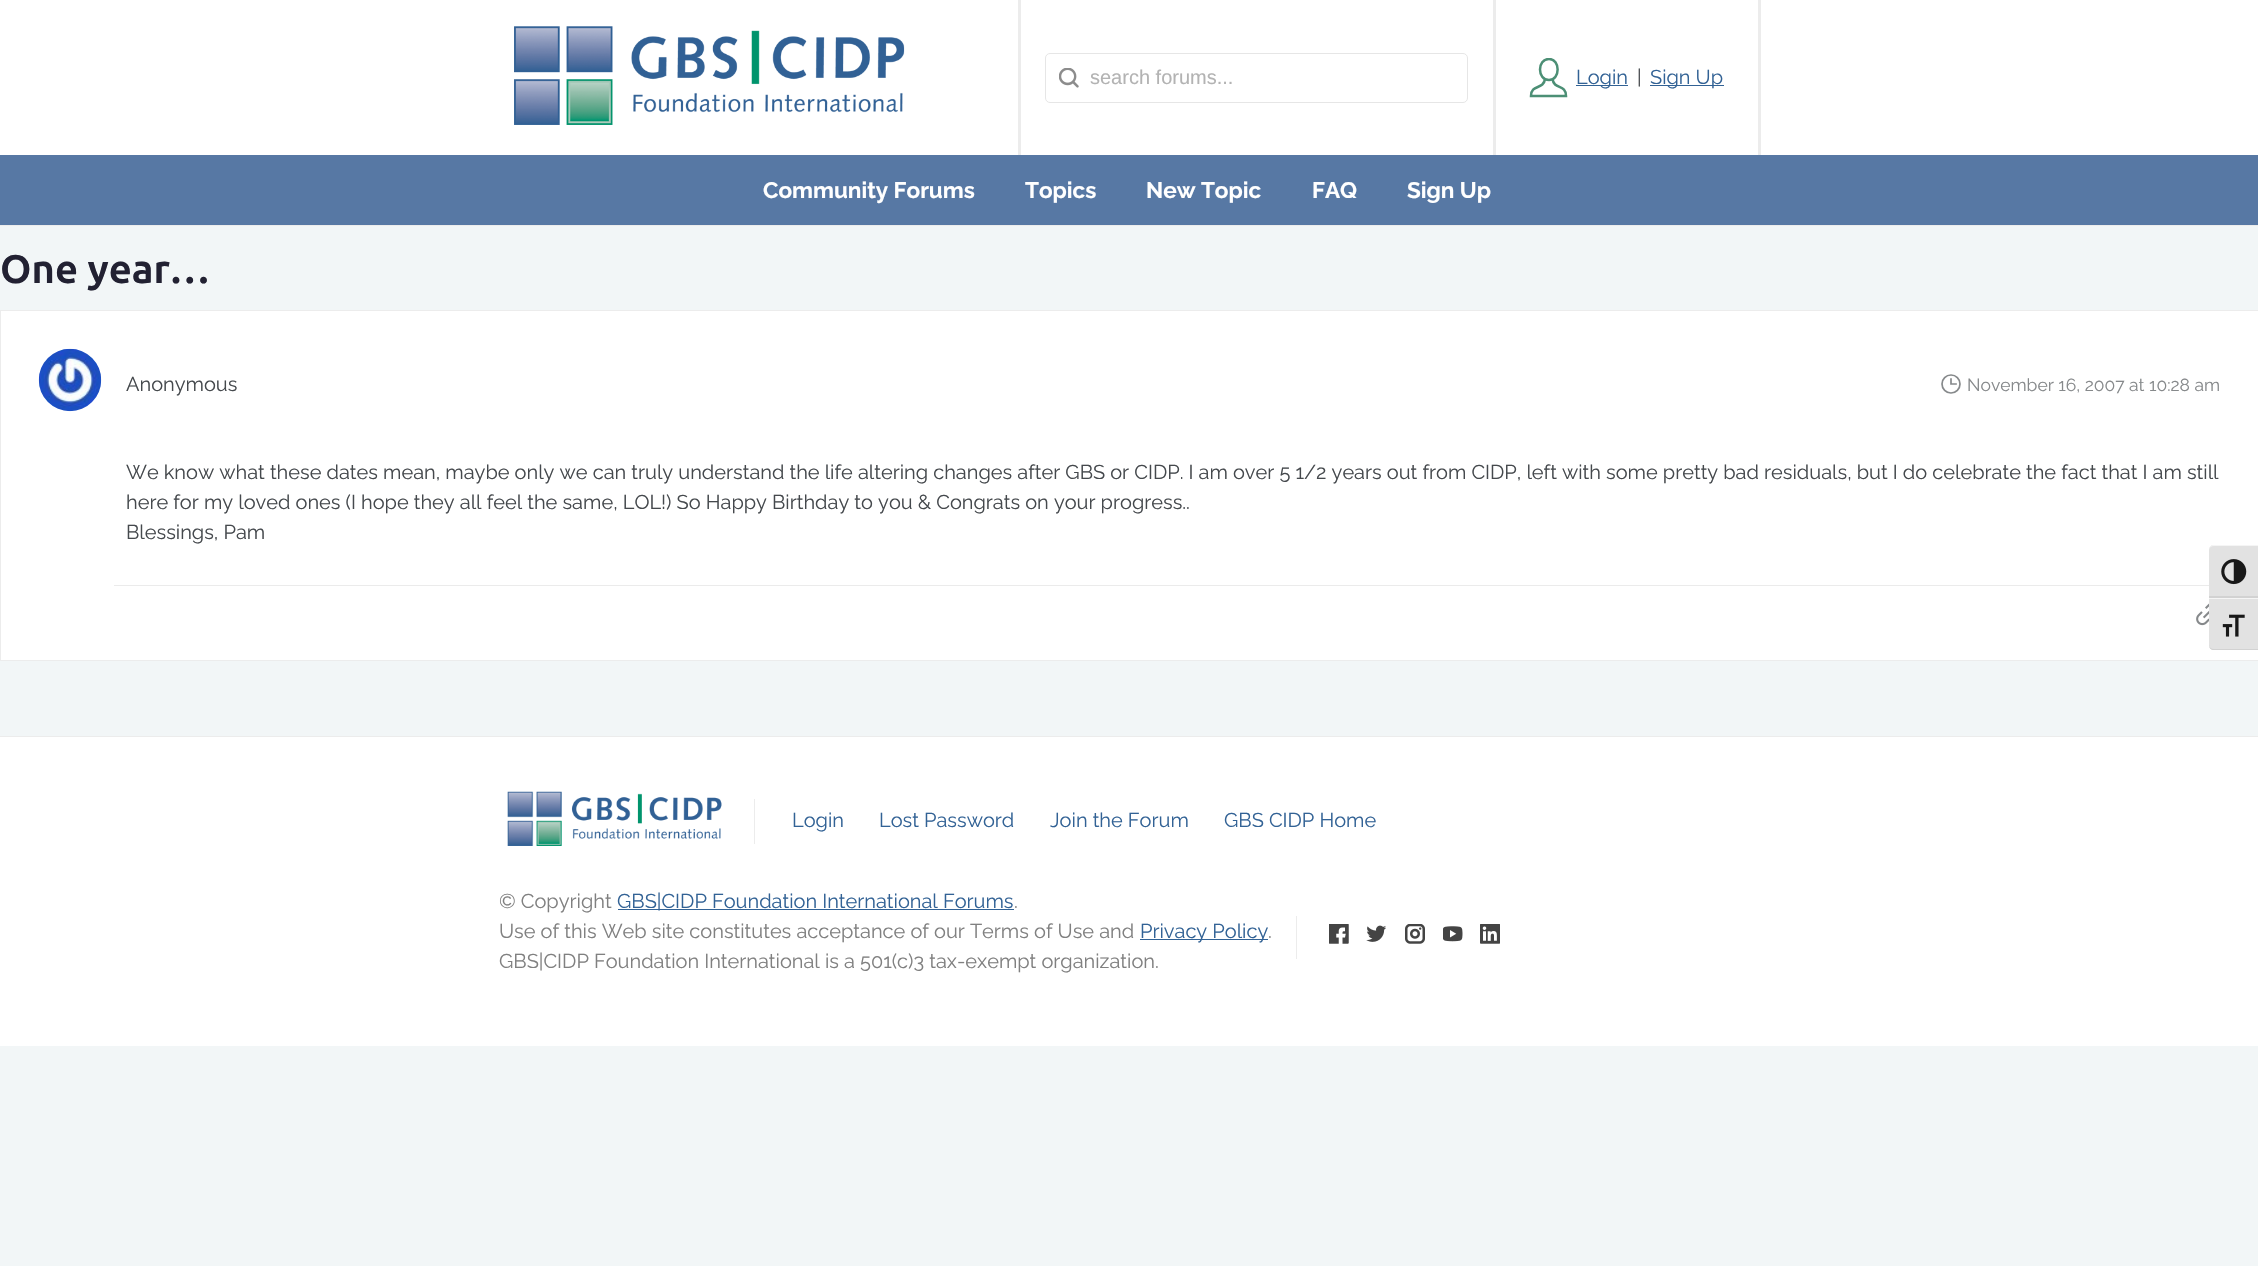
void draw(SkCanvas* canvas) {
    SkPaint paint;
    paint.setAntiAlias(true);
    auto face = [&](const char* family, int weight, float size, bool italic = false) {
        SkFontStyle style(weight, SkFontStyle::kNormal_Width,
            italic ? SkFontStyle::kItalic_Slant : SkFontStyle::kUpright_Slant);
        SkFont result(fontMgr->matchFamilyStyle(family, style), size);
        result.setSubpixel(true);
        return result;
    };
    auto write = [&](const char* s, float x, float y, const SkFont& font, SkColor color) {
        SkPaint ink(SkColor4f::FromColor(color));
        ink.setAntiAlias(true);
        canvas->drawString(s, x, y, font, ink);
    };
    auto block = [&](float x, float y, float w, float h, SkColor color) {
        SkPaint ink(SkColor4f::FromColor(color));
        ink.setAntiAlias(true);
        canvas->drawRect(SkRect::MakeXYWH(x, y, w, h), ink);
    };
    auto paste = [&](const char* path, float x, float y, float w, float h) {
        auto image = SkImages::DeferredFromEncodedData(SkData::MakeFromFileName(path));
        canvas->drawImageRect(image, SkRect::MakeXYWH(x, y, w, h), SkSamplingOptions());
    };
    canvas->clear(SkColorSetRGB(242, 246, 247));
    block(0, 0, 2258, 155, SK_ColorWHITE);
    block(0, 225, 2258, 1, SkColorSetRGB(236, 236, 236));
    block(1018, 0, 3, 155, SkColorSetRGB(236, 236, 236));
    paste("pic1.png", 514, 26, 391, 99);
    block(1493, 0, 3, 155, SkColorSetRGB(236, 236, 236));
    paste("pic2.png", 1059, 68, 20, 20);
    paint.setStyle(SkPaint::kStroke_Style);
    paint.setStrokeWidth(1);
    paint.setColor(SkColorSetRGB(230, 230, 230));
    canvas->drawRoundRect(SkRect::MakeXYWH(1045.5f, 53.5f, 422, 49), 4.5f, 4.5f, paint);
    auto kFont1 = face("Liberation Sans", 400, 20);
    write("search forums...", 1090, 84, kFont1, SkColorSetRGB(179, 179, 179));
    block(1758, 0, 3, 155, SkColorSetRGB(236, 236, 236));
    paint.setStrokeWidth(2.5f);
    paint.setColor(SkColorSetRGB(76, 143, 117));
    canvas->drawPath(SkPathBuilder().moveTo(1545, 79).cubicTo(1543.5f, 90, 1531, 84, 1531, 96).lineTo(1566, 96).cubicTo(1566, 84, 1554, 90, 1552.5f, 79).detach(), paint);
    canvas->save();
    canvas->clipRect(SkRect::MakeXYWH(1529, 58, 40, 40));
    paint.setStrokeCap(SkPaint::kSquare_Cap);
    canvas->drawPath(SkPathBuilder().moveTo(1549, 80).cubicTo(1537, 80, 1537, 59, 1549, 59).cubicTo(1560.5f, 59, 1560.5f, 80, 1549, 80).close().detach(), paint);
    canvas->restore();
    block(1576, 85, 52, 1, SkColorSetRGB(50, 98, 149));
    auto kFont2 = face("Raleway", 400, 20);
    write("Login", 1576, 84, kFont2, SkColorSetRGB(50, 98, 149));
    write("|", 1637, 84, kFont2, SkColorSetRGB(69, 73, 77));
    block(1650, 85, 74, 1, SkColorSetRGB(50, 98, 149));
    write("Sign Up", 1650, 84, kFont2, SkColorSetRGB(50, 98, 149));
    block(0, 155, 2258, 70, SkColorSetRGB(87, 120, 164));
    auto kFont3 = face("Raleway", 700, 22.5f);
    write("Community Forums", 763, 198, kFont3, SK_ColorWHITE);
    write("Topics", 1025, 198, kFont3, SK_ColorWHITE);
    write("New Topic", 1146, 198, kFont3, SK_ColorWHITE);
    write("FAQ", 1312, 198, kFont3, SK_ColorWHITE);
    write("Sign Up", 1407, 198, kFont3, SK_ColorWHITE);
    auto kFont4 = face("Ubuntu", 700, 40);
    write("One year…", 0, 283, kFont4, SkColorSetRGB(34, 33, 50));
    paint.setStyle(SkPaint::kFill_Style);
    paint.setColor(SK_ColorWHITE);
    canvas->drawRect(SkRect::MakeXYWH(0.5f, 310.5f, 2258, 350), paint);
    paint.setStyle(SkPaint::kStroke_Style);
    paint.setStrokeWidth(1);
    paint.setStrokeCap(SkPaint::kButt_Cap);
    paint.setColor(SkColorSetRGB(236, 236, 236));
    canvas->drawRect(SkRect::MakeXYWH(0.5f, 310.5f, 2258, 350), paint);
    paste("pic3.png", 38, 348, 64, 64);
    write("Anonymous", 126, 391, kFont2, SkColorSetRGB(69, 73, 77));
    paint.setStrokeWidth(1.7f);
    paint.setColor(SkColorSetRGB(134, 137, 139));
    canvas->drawCircle(1951, 384, 9, paint);
    paint.setStrokeCap(SkPaint::kSquare_Cap);
    canvas->drawPath(SkPathBuilder().moveTo(1951, 379).lineTo(1951, 384).lineTo(1956, 384).detach(), paint);
    auto kFont5 = face("Raleway", 400, 17.5f);
    write("November 16, 2007 at 10:28 am", 1967, 391, kFont5, SkColorSetRGB(134, 137, 139));
    write("We know what these dates mean, maybe only we can truly understand the life altering changes after GBS or CIDP. I am over 5 1/2 years out from CIDP, left with some pretty bad residuals, but I do celebrate the fact that I am still", 126, 479, kFont2, SkColorSetRGB(69, 73, 77));
    write("here for my loved ones (I hope they all feel the same, LOL!) So Happy Birthday to you & Congrats on your progress..", 126, 509, kFont2, SkColorSetRGB(69, 73, 77));
    write("Blessings, Pam", 126, 539, kFont2, SkColorSetRGB(69, 73, 77));
    block(114, 585, 2095, 1, SkColorSetRGB(235, 235, 235));
    paste("pic4.png", 2196, 603, 13, 23);
    block(0, 737, 2258, 309, SK_ColorWHITE);
    block(0, 736, 2258, 1, SkColorSetRGB(236, 236, 236));
    paste("pic5.png", 507, 791, 215, 55);
    block(754, 799, 1, 45, SkColorSetRGB(236, 236, 236));
    write("Login", 792, 827, kFont2, SkColorSetRGB(50, 98, 149));
    write("Lost Password", 879, 827, kFont2, SkColorSetRGB(50, 98, 149));
    write("Join the Forum", 1050, 827, kFont2, SkColorSetRGB(50, 98, 149));
    write("GBS CIDP Home", 1224, 827, kFont2, SkColorSetRGB(50, 98, 149));
    write("© Copyright", 499, 908, kFont2, SkColorSetRGB(128, 128, 128));
    block(618, 909, 396, 1, SkColorSetRGB(50, 98, 149));
    write("GBS|CIDP Foundation International Forums", 617, 908, kFont2, SkColorSetRGB(50, 98, 149));
    write(".", 1014, 908, kFont2, SkColorSetRGB(128, 128, 128));
    write("Use of this Web site constitutes acceptance of our Terms of Use and", 499, 938, kFont2, SkColorSetRGB(128, 128, 128));
    block(1140, 939, 128, 1, SkColorSetRGB(50, 98, 149));
    write("Privacy Policy", 1140, 938, kFont2, SkColorSetRGB(50, 98, 149));
    write(".", 1268, 938, kFont2, SkColorSetRGB(128, 128, 128));
    write("GBS|CIDP Foundation International is a 501(c)3 tax-exempt organization.", 499, 968, kFont2, SkColorSetRGB(128, 128, 128));
    block(1296, 916, 1, 43, SkColorSetRGB(236, 236, 236));
    paste("pic6.png", 1329, 924, 20, 20);
    paste("pic7.png", 1366, 925, 20, 17);
    paste("pic8.png", 1405, 924, 20, 20);
    paste("pic9.png", 1443, 926, 20, 16);
    paste("pic10.png", 1480, 924, 20, 20);
    paint.setStyle(SkPaint::kFill_Style);
    paint.setColor(SkColorSetRGB(226, 226, 226));
    canvas->drawPath(SkPathBuilder().moveTo(2214, 545).lineTo(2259, 545).lineTo(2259, 598).lineTo(2209, 598).lineTo(2209, 550).cubicTo(2209, 547, 2211, 545, 2214, 545).close().detach(), paint);
    paint.setColor(SkColorSetRGB(245, 245, 245));
    canvas->drawPath(SkPathBuilder().moveTo(2214, 545).cubicTo(2211, 545, 2209, 547, 2209, 550).cubicTo(2209, 548, 2211, 546, 2214, 546).lineTo(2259, 546).lineTo(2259, 545).close().detach(), paint);
    block(2209, 596, 49, 2, SkColorSetRGB(210, 210, 210));
    paste("pic11.png", 2221, 559, 26, 26);
    paint.setColor(SkColorSetRGB(226, 226, 226));
    canvas->drawPath(SkPathBuilder().moveTo(2209, 598).lineTo(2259, 598).lineTo(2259, 650).lineTo(2214, 650).cubicTo(2211, 650, 2209, 648, 2209, 645).close().detach(), paint);
    block(2209, 598, 49, 1, SkColorSetRGB(245, 245, 245));
    paint.setColor(SkColorSetRGB(210, 210, 210));
    canvas->drawPath(SkPathBuilder().moveTo(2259, 650).lineTo(2214, 650).cubicTo(2211, 650, 2209, 648, 2209, 645).cubicTo(2209, 647, 2211, 649, 2214, 649).lineTo(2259, 649).close().detach(), paint);
    paste("pic12.png", 2222, 614, 23, 23);
}
